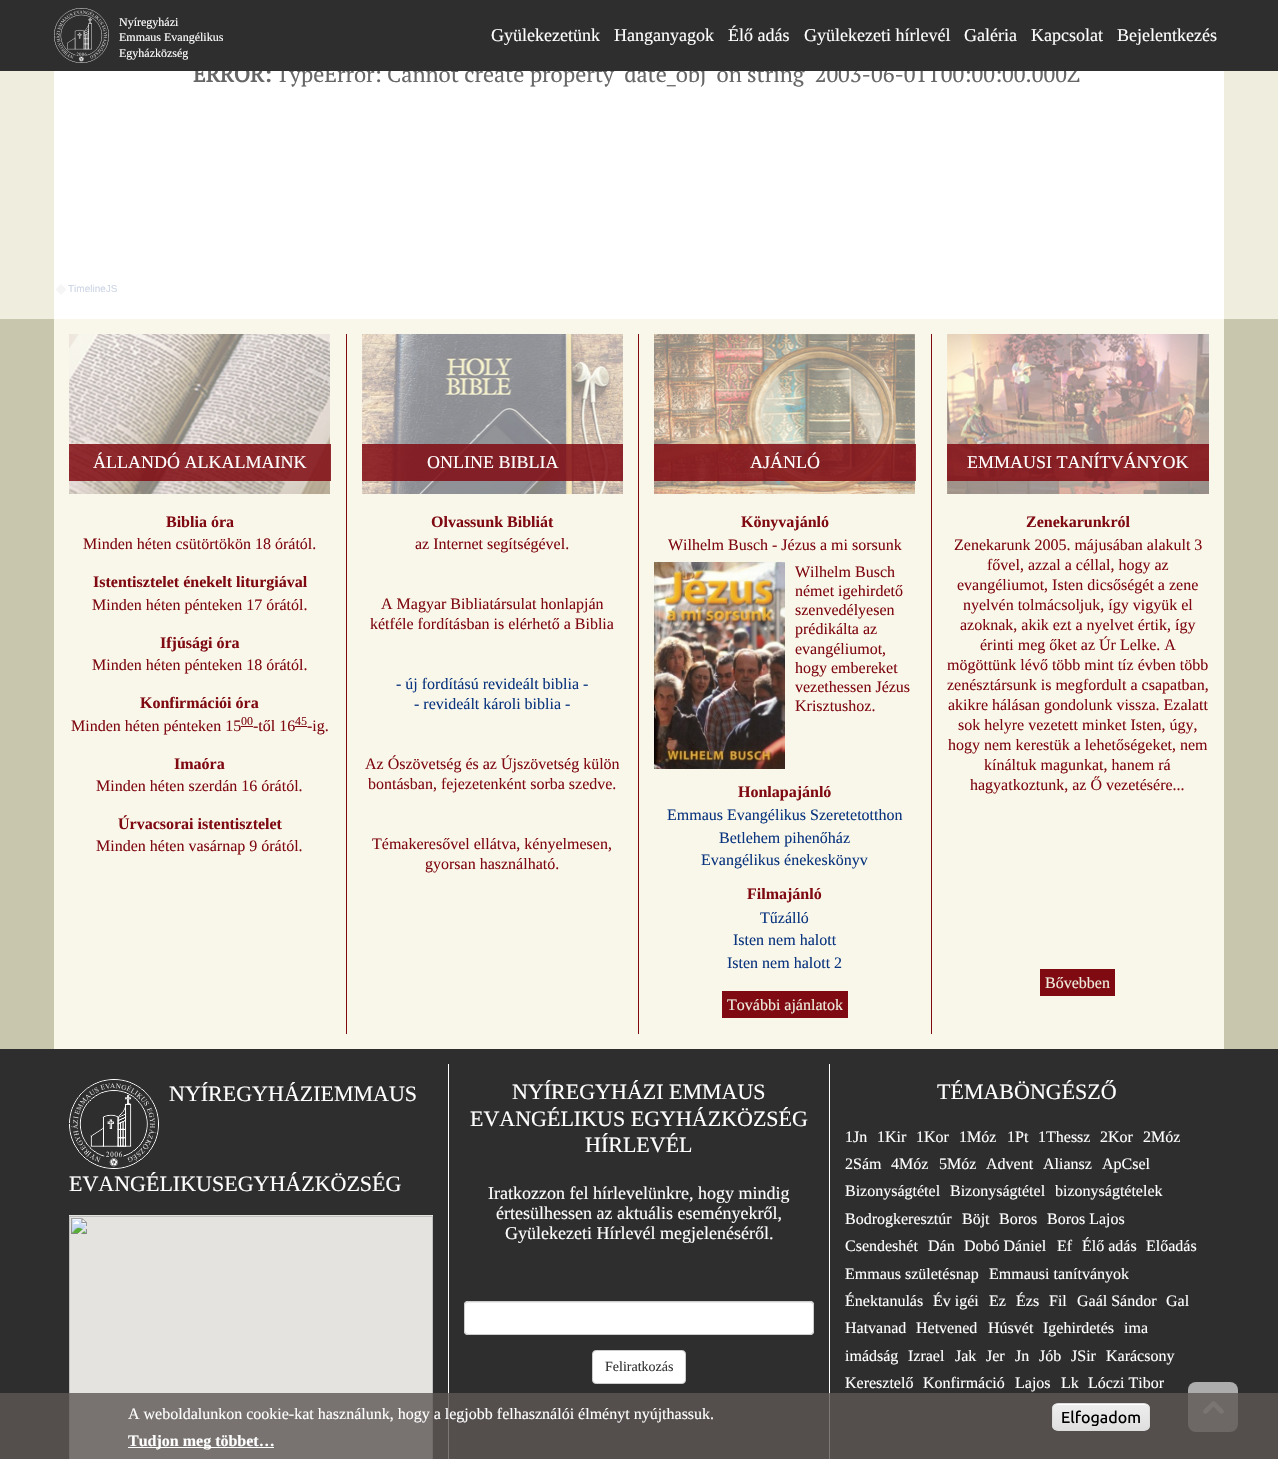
void draw(SkCanvas* canvas) {
    SkPaint paint;
    paint.setAntiAlias(true);
    auto face = [&](const char* family, int weight, float size, bool italic = false) {
        SkFontStyle style(weight, SkFontStyle::kNormal_Width,
            italic ? SkFontStyle::kItalic_Slant : SkFontStyle::kUpright_Slant);
        SkFont result(fontMgr->matchFamilyStyle(family, style), size);
        result.setSubpixel(true);
        return result;
    };
    auto write = [&](const char* s, float x, float y, const SkFont& font, SkColor color) {
        SkPaint ink(SkColor4f::FromColor(color));
        ink.setAntiAlias(true);
        canvas->drawString(s, x, y, font, ink);
    };
    auto block = [&](float x, float y, float w, float h, SkColor color) {
        SkPaint ink(SkColor4f::FromColor(color));
        ink.setAntiAlias(true);
        canvas->drawRect(SkRect::MakeXYWH(x, y, w, h), ink);
    };
    auto card = [&](float x, float y, float w, float h, float radius, SkColor color) {
        SkPaint ink(SkColor4f::FromColor(color));
        ink.setAntiAlias(true);
        canvas->drawRoundRect(SkRect::MakeXYWH(x, y, w, h), radius, radius, ink);
    };
    auto paste = [&](const char* path, float x, float y, float w, float h) {
        auto image = SkImages::DeferredFromEncodedData(SkData::MakeFromFileName(path));
        canvas->drawImageRect(image, SkRect::MakeXYWH(x, y, w, h), SkSamplingOptions());
    };
    canvas->clear(SkColorSetRGB(239, 238, 222));
    block(54, 71, 1170, 248, SK_ColorWHITE);
    auto kFont1 = face("PT Serif", 700, 22);
    write("ERROR:", 193, 82, kFont1, SkColorSetRGB(102, 102, 102));
    auto kFont2 = face("PT Serif", 400, 22);
    write("TypeError: Cannot create property 'date_obj' on string '2003-06-01T00:00:00.000Z", 276, 82, kFont2, SkColorSetRGB(102, 102, 102));
    block(0, 0, 1278, 71, SkColorSetRGB(46, 46, 46));
    paste("pic1.png", 54, 8, 55, 55);
    auto kFont3 = face("Liberation Serif", 400, 12);
    write("Nyíregyházi", 119, 26, kFont3, SK_ColorWHITE);
    write("Emmaus Evangélikus", 119, 41, kFont3, SK_ColorWHITE);
    write("Egyházközség", 119, 57, kFont3, SK_ColorWHITE);
    auto kFont4 = face("Liberation Serif", 400, 18);
    write("Gyülekezetünk", 491, 41, kFont4, SK_ColorWHITE);
    write("Hanganyagok", 614, 41, kFont4, SK_ColorWHITE);
    write("Élő adás", 728, 41, kFont4, SK_ColorWHITE);
    write("Gyülekezeti hírlevél", 804, 41, kFont4, SK_ColorWHITE);
    write("Galéria", 964, 41, kFont4, SK_ColorWHITE);
    write("Kapcsolat", 1031, 41, kFont4, SK_ColorWHITE);
    write("Bejelentkezés", 1117, 41, kFont4, SK_ColorWHITE);
    paint.setColor(SkColorSetRGB(245, 245, 245));
    canvas->drawPath(SkPathBuilder().moveTo(61, 284).lineTo(66.5f, 289.5f).lineTo(61, 295).lineTo(55.5f, 289.5f).close().detach(), paint);
    auto kFont5 = face("Liberation Sans", 400, 10);
    write("TimelineJS", 68, 292, kFont5, SkColorSetRGB(206, 215, 229));
    block(0, 319, 1278, 730, SkColorSetRGB(200, 198, 173));
    block(54, 319, 1170, 730, SkColorSetRGB(249, 247, 234));
    block(346, 334, 1, 700, SkColorSetRGB(128, 10, 18));
    paste("pic2.png", 69, 334, 261, 160);
    block(69, 444, 262, 37, SkColorSetARGB(217, 128, 10, 18));
    write("ÁLLANDÓ ALKALMAINK", 93, 468, kFont4, SK_ColorWHITE);
    auto kFont6 = face("Liberation Serif", 700, 16);
    write("Biblia óra", 166, 527, kFont6, SkColorSetRGB(128, 10, 18));
    auto kFont7 = face("Liberation Serif", 400, 16);
    write("Minden héten csütörtökön 18 órától.", 83, 549, kFont7, SkColorSetRGB(128, 10, 18));
    write("Istentisztelet énekelt liturgiával", 93, 587, kFont6, SkColorSetRGB(128, 10, 18));
    write("Minden héten pénteken 17 órától.", 92, 610, kFont7, SkColorSetRGB(128, 10, 18));
    write("Ifjúsági óra", 160, 648, kFont6, SkColorSetRGB(128, 10, 18));
    write("Minden héten pénteken 18 órától.", 92, 670, kFont7, SkColorSetRGB(128, 10, 18));
    write("Konfirmációi óra", 140, 708, kFont6, SkColorSetRGB(128, 10, 18));
    write("Minden héten pénteken 15", 71, 731, kFont7, SkColorSetRGB(128, 10, 18));
    write("00", 241, 725, kFont3, SkColorSetRGB(128, 10, 18));
    block(241, 726, 12, 1, SkColorSetRGB(128, 10, 18));
    write("-től 16", 253, 731, kFont7, SkColorSetRGB(128, 10, 18));
    write("45", 295, 725, kFont3, SkColorSetRGB(128, 10, 18));
    block(295, 726, 12, 1, SkColorSetRGB(128, 10, 18));
    write("-ig.", 307, 731, kFont7, SkColorSetRGB(128, 10, 18));
    write("Imaóra", 174, 769, kFont6, SkColorSetRGB(128, 10, 18));
    write("Minden héten szerdán 16 órától.", 96, 791, kFont7, SkColorSetRGB(128, 10, 18));
    write("Úrvacsorai istentisztelet", 118, 829, kFont6, SkColorSetRGB(128, 10, 18));
    write("Minden héten vasárnap 9 órától.", 96, 851, kFont7, SkColorSetRGB(128, 10, 18));
    block(638, 334, 1, 700, SkColorSetRGB(128, 10, 18));
    paste("pic3.png", 362, 334, 261, 160);
    block(362, 444, 261, 37, SkColorSetARGB(217, 128, 10, 18));
    write("ONLINE BIBLIA", 427, 468, kFont4, SK_ColorWHITE);
    write("Olvassunk Bibliát", 431, 527, kFont6, SkColorSetRGB(128, 10, 18));
    write("az Internet segítségével.", 415, 549, kFont7, SkColorSetRGB(128, 10, 18));
    write("A Magyar Bibliatársulat honlapján", 381, 609, kFont7, SkColorSetRGB(128, 10, 18));
    write("kétféle fordításban is elérhető a Biblia", 370, 629, kFont7, SkColorSetRGB(128, 10, 18));
    write("- új fordítású revideált biblia -", 396, 689, kFont7, SkColorSetRGB(11, 53, 127));
    write("- revideált károli biblia -", 414, 709, kFont7, SkColorSetRGB(11, 53, 127));
    write("Az Ószövetség és az Újszövetség külön", 365, 769, kFont7, SkColorSetRGB(128, 10, 18));
    write("bontásban, fejezetenként sorba szedve.", 368, 789, kFont7, SkColorSetRGB(128, 10, 18));
    write("Témakeresővel ellátva, kényelmesen,", 372, 849, kFont7, SkColorSetRGB(128, 10, 18));
    write("gyorsan használható.", 425, 869, kFont7, SkColorSetRGB(128, 10, 18));
    block(931, 334, 1, 700, SkColorSetRGB(128, 10, 18));
    paste("pic4.png", 654, 334, 261, 160);
    block(654, 444, 262, 37, SkColorSetARGB(217, 128, 10, 18));
    write("AJÁNLÓ", 750, 468, kFont4, SK_ColorWHITE);
    write("Könyvajánló", 741, 527, kFont6, SkColorSetRGB(128, 10, 18));
    write("Wilhelm Busch - Jézus a mi sorsunk", 668, 550, kFont7, SkColorSetRGB(128, 10, 18));
    paste("pic5.png", 654, 562, 131, 207);
    write("Wilhelm Busch", 795, 577, kFont7, SkColorSetRGB(128, 10, 18));
    write("német igehirdető", 795, 596, kFont7, SkColorSetRGB(128, 10, 18));
    write("szenvedélyesen", 795, 615, kFont7, SkColorSetRGB(128, 10, 18));
    write("prédikálta az", 795, 634, kFont7, SkColorSetRGB(128, 10, 18));
    write("evangéliumot,", 795, 654, kFont7, SkColorSetRGB(128, 10, 18));
    write("hogy embereket", 795, 673, kFont7, SkColorSetRGB(128, 10, 18));
    write("vezethessen Jézus", 795, 692, kFont7, SkColorSetRGB(128, 10, 18));
    write("Krisztushoz.", 795, 711, kFont7, SkColorSetRGB(128, 10, 18));
    write("Honlapajánló", 738, 797, kFont6, SkColorSetRGB(128, 10, 18));
    write("Emmaus Evangélikus Szeretetotthon", 667, 820, kFont7, SkColorSetRGB(11, 53, 127));
    write("Betlehem pihenőház", 719, 843, kFont7, SkColorSetRGB(11, 53, 127));
    write("Evangélikus énekeskönyv", 701, 865, kFont7, SkColorSetRGB(11, 53, 127));
    write("Filmajánló", 747, 899, kFont6, SkColorSetRGB(128, 10, 18));
    write("Tűzálló", 760, 923, kFont7, SkColorSetRGB(11, 53, 127));
    write("Isten nem halott", 733, 945, kFont7, SkColorSetRGB(11, 53, 127));
    write("Isten nem halott 2", 727, 968, kFont7, SkColorSetRGB(11, 53, 127));
    block(722, 991, 126, 27, SkColorSetRGB(128, 10, 18));
    write("További ajánlatok", 727, 1010, kFont7, SkColorSetRGB(239, 238, 222));
    paste("pic6.png", 947, 334, 262, 160);
    block(947, 444, 262, 37, SkColorSetARGB(217, 128, 10, 18));
    write("EMMAUSI TANÍTVÁNYOK", 967, 468, kFont4, SK_ColorWHITE);
    write("Zenekarunkról", 1026, 527, kFont6, SkColorSetRGB(128, 10, 18));
    write("Zenekarunk 2005. májusában alakult 3", 954, 550, kFont7, SkColorSetRGB(128, 10, 18));
    write("fővel, azzal a céllal, hogy az", 987, 570, kFont7, SkColorSetRGB(128, 10, 18));
    write("evangéliumot, Isten dicsőségét a zene", 957, 590, kFont7, SkColorSetRGB(128, 10, 18));
    write("nyelvén tolmácsoljuk, így vigyük el", 963, 610, kFont7, SkColorSetRGB(128, 10, 18));
    write("azoknak, akik ezt a nyelvet értik, így", 960, 630, kFont7, SkColorSetRGB(128, 10, 18));
    write("érinti meg őket az Úr Lelke. A", 980, 650, kFont7, SkColorSetRGB(128, 10, 18));
    write("mögöttünk lévő több mint tíz évben több", 947, 670, kFont7, SkColorSetRGB(128, 10, 18));
    write("zenésztársunk is megfordult a csapatban,", 947, 690, kFont7, SkColorSetRGB(128, 10, 18));
    write("akikre hálásan gondolunk vissza. Ezalatt", 948, 710, kFont7, SkColorSetRGB(128, 10, 18));
    write("sok helyre vezetett minket Isten, úgy,", 958, 730, kFont7, SkColorSetRGB(128, 10, 18));
    write("hogy nem kerestük a lehetőségeket, nem", 948, 750, kFont7, SkColorSetRGB(128, 10, 18));
    write("kínáltuk magunkat, hanem rá", 984, 770, kFont7, SkColorSetRGB(128, 10, 18));
    write("hagyatkoztunk, az Ő vezetésére...", 970, 790, kFont7, SkColorSetRGB(128, 10, 18));
    block(1040, 969, 75, 27, SkColorSetRGB(128, 10, 18));
    write("Bővebben", 1045, 988, kFont7, SkColorSetRGB(239, 238, 222));
    block(0, 1049, 1278, 410, SkColorSetRGB(46, 46, 46));
    block(448, 1064, 1, 395, SK_ColorWHITE);
    paste("pic7.png", 69, 1079, 90, 90);
    auto kFont8 = face("Liberation Serif", 400, 22);
    write("NYÍREGYHÁZIEMMAUS", 169, 1101, kFont8, SK_ColorWHITE);
    write("EVANGÉLIKUSEGYHÁZKÖZSÉG", 69, 1191, kFont8, SK_ColorWHITE);
    paste("pic8.png", 69, 1215, 364, 244);
    write("NYÍREGYHÁZI EMMAUS", 512, 1099, kFont8, SK_ColorWHITE);
    write("EVANGÉLIKUS EGYHÁZKÖZSÉG", 470, 1126, kFont8, SK_ColorWHITE);
    write("HÍRLEVÉL", 585, 1152, kFont8, SK_ColorWHITE);
    write("Iratkozzon fel hírlevelünkre, hogy mindig", 488, 1199, kFont4, SK_ColorWHITE);
    write("értesülhessen az aktuális eseményekről,", 496, 1219, kFont4, SK_ColorWHITE);
    write("Gyülekezeti Hírlevél megjelenéséről.", 505, 1239, kFont4, SK_ColorWHITE);
    card(464, 1301, 350, 34, 4, SK_ColorWHITE);
    paint.setColor(SkColorSetRGB(236, 236, 236));
    canvas->drawPath(SkPathBuilder().moveTo(468, 1303).lineTo(810, 1303).cubicTo(812, 1303, 813, 1304, 813, 1306).cubicTo(813, 1304, 812, 1302, 810, 1302).lineTo(468, 1302).lineTo(466, 1303).lineTo(465, 1306).cubicTo(465, 1304, 466, 1303, 468, 1303).close().detach(), paint);
    paint.setStyle(SkPaint::kStroke_Style);
    paint.setStrokeWidth(1);
    paint.setColor(SkColorSetRGB(204, 204, 204));
    canvas->drawRoundRect(SkRect::MakeXYWH(464.5f, 1301.5f, 349, 33), 3.5f, 3.5f, paint);
    paint.setStyle(SkPaint::kFill_Style);
    paint.setColor(SK_ColorWHITE);
    canvas->drawRoundRect(SkRect::MakeXYWH(592.5f, 1350.5f, 93, 33), 3.5f, 3.5f, paint);
    paint.setStyle(SkPaint::kStroke_Style);
    paint.setColor(SkColorSetRGB(204, 204, 204));
    canvas->drawRoundRect(SkRect::MakeXYWH(592.5f, 1350.5f, 93, 33), 3.5f, 3.5f, paint);
    auto kFont9 = face("Liberation Serif", 400, 14);
    write("Feliratkozás", 605, 1371, kFont9, SkColorSetRGB(51, 51, 51));
    block(829, 1064, 1, 395, SK_ColorWHITE);
    write("TÉMABÖNGÉSZŐ", 937, 1099, kFont8, SK_ColorWHITE);
    write("1Jn", 845, 1142, kFont7, SK_ColorWHITE);
    write("1Kir", 877, 1142, kFont7, SK_ColorWHITE);
    write("1Kor", 916, 1142, kFont7, SK_ColorWHITE);
    write("1Móz", 959, 1142, kFont7, SK_ColorWHITE);
    write("1Pt", 1007, 1142, kFont7, SK_ColorWHITE);
    write("1Thessz", 1038, 1142, kFont7, SK_ColorWHITE);
    write("2Kor", 1100, 1142, kFont7, SK_ColorWHITE);
    write("2Móz", 1143, 1142, kFont7, SK_ColorWHITE);
    write("2Sám", 845, 1169, kFont7, SK_ColorWHITE);
    write("4Móz", 891, 1169, kFont7, SK_ColorWHITE);
    write("5Móz", 939, 1169, kFont7, SK_ColorWHITE);
    write("Advent", 986, 1169, kFont7, SK_ColorWHITE);
    write("Aliansz", 1043, 1169, kFont7, SK_ColorWHITE);
    write("ApCsel", 1102, 1169, kFont7, SK_ColorWHITE);
    write("Bizonyságtétel", 845, 1196, kFont7, SK_ColorWHITE);
    write("Bizonyságtétel", 950, 1196, kFont7, SK_ColorWHITE);
    write("bizonyságtételek", 1055, 1196, kFont7, SK_ColorWHITE);
    write("Bodrogkeresztúr", 845, 1224, kFont7, SK_ColorWHITE);
    write("Böjt", 962, 1224, kFont7, SK_ColorWHITE);
    write("Boros", 999, 1224, kFont7, SK_ColorWHITE);
    write("Boros Lajos", 1047, 1224, kFont7, SK_ColorWHITE);
    write("Csendeshét", 845, 1251, kFont7, SK_ColorWHITE);
    write("Dán", 928, 1251, kFont7, SK_ColorWHITE);
    write("Dobó Dániel", 964, 1251, kFont7, SK_ColorWHITE);
    write("Ef", 1057, 1251, kFont7, SK_ColorWHITE);
    write("Élő adás", 1082, 1251, kFont7, SK_ColorWHITE);
    write("Előadás", 1146, 1251, kFont7, SK_ColorWHITE);
    write("Emmaus születésnap", 845, 1279, kFont7, SK_ColorWHITE);
    write("Emmausi tanítványok", 989, 1279, kFont7, SK_ColorWHITE);
    write("Énektanulás", 845, 1306, kFont7, SK_ColorWHITE);
    write("Év igéi", 933, 1306, kFont7, SK_ColorWHITE);
    write("Ez", 989, 1306, kFont7, SK_ColorWHITE);
    write("Ézs", 1016, 1306, kFont7, SK_ColorWHITE);
    write("Fil", 1049, 1306, kFont7, SK_ColorWHITE);
    write("Gaál Sándor", 1077, 1306, kFont7, SK_ColorWHITE);
    write("Gal", 1166, 1306, kFont7, SK_ColorWHITE);
    write("Hatvanad", 845, 1333, kFont7, SK_ColorWHITE);
    write("Hetvened", 916, 1333, kFont7, SK_ColorWHITE);
    write("Húsvét", 988, 1333, kFont7, SK_ColorWHITE);
    write("Igehirdetés", 1043, 1333, kFont7, SK_ColorWHITE);
    write("ima", 1124, 1333, kFont7, SK_ColorWHITE);
    write("imádság", 845, 1361, kFont7, SK_ColorWHITE);
    write("Izrael", 908, 1361, kFont7, SK_ColorWHITE);
    write("Jak", 955, 1361, kFont7, SK_ColorWHITE);
    write("Jer", 986, 1361, kFont7, SK_ColorWHITE);
    write("Jn", 1015, 1361, kFont7, SK_ColorWHITE);
    write("Jób", 1039, 1361, kFont7, SK_ColorWHITE);
    write("JSir", 1071, 1361, kFont7, SK_ColorWHITE);
    write("Karácsony", 1106, 1361, kFont7, SK_ColorWHITE);
    write("Keresztelő", 845, 1388, kFont7, SK_ColorWHITE);
    write("Konfirmáció", 923, 1388, kFont7, SK_ColorWHITE);
    write("Lajos", 1015, 1388, kFont7, SK_ColorWHITE);
    write("Lk", 1061, 1388, kFont7, SK_ColorWHITE);
    write("Lóczi Tibor", 1088, 1388, kFont7, SK_ColorWHITE);
    card(1188, 1382, 50, 50, 8, SkColorSetRGB(172, 172, 172));
    paste("pic9.png", 1203, 1401, 21, 13);
    block(0, 1393, 1278, 66, SkColorSetARGB(204, 93, 86, 84));
    write("A weboldalunkon cookie-kat használunk, hogy a legjobb felhasználói élményt nyújthassuk.", 128, 1419, kFont7, SK_ColorWHITE);
    block(128, 1447, 146, 1, SK_ColorWHITE);
    write("Tudjon meg többet…", 128, 1446, kFont6, SK_ColorWHITE);
    canvas->save();
    canvas->clipPath(SkPathBuilder().moveTo(1058, 1403).lineTo(1144, 1403).cubicTo(1147.5f, 1403, 1150, 1405.5f, 1150, 1409).lineTo(1150, 1425).cubicTo(1150, 1428.5f, 1147.5f, 1431, 1144, 1431).lineTo(1058, 1431).cubicTo(1054.5f, 1431, 1052, 1428.5f, 1052, 1425).lineTo(1052, 1409).cubicTo(1052, 1405.5f, 1054.5f, 1403, 1058, 1403).close().detach(), true);
    paint.setStyle(SkPaint::kFill_Style);
    {
        const SkColor colors[] = {SkColorSetRGB(237, 237, 237), SkColorSetRGB(223, 223, 223)};
        const float stops[] = {0.05f, 1};
        const SkPoint ends[] = {{1101, 1404}, {1101, 1430}};
        paint.setShader(SkGradientShader::MakeLinear(ends, colors, stops, 2, SkTileMode::kClamp));
        paint.setAlpha(255);
    }
    canvas->drawRect(SkRect::MakeXYWH(1052, 1404, 98, 26), paint);
    canvas->restore();
    paint.setShader(nullptr);
    paint.setColor(SK_ColorWHITE);
    canvas->drawPath(SkPathBuilder().moveTo(1058, 1405).lineTo(1144, 1405).cubicTo(1147, 1405, 1149, 1407, 1149, 1410).cubicTo(1149, 1400, 1135, 1404, 1130, 1404).lineTo(1072, 1404).cubicTo(1067, 1404, 1053, 1400, 1053, 1410).cubicTo(1053, 1407, 1055, 1405, 1058, 1405).close().detach(), paint);
    paint.setStyle(SkPaint::kStroke_Style);
    paint.setColor(SkColorSetRGB(220, 220, 220));
    canvas->drawRoundRect(SkRect::MakeXYWH(1052.5f, 1403.5f, 97, 27), 5.5f, 5.5f, paint);
    auto kFont10 = face("Ubuntu", 500, 16);
    write("Elfogadom", 1061, 1423, kFont10, SK_ColorBLACK);
}
